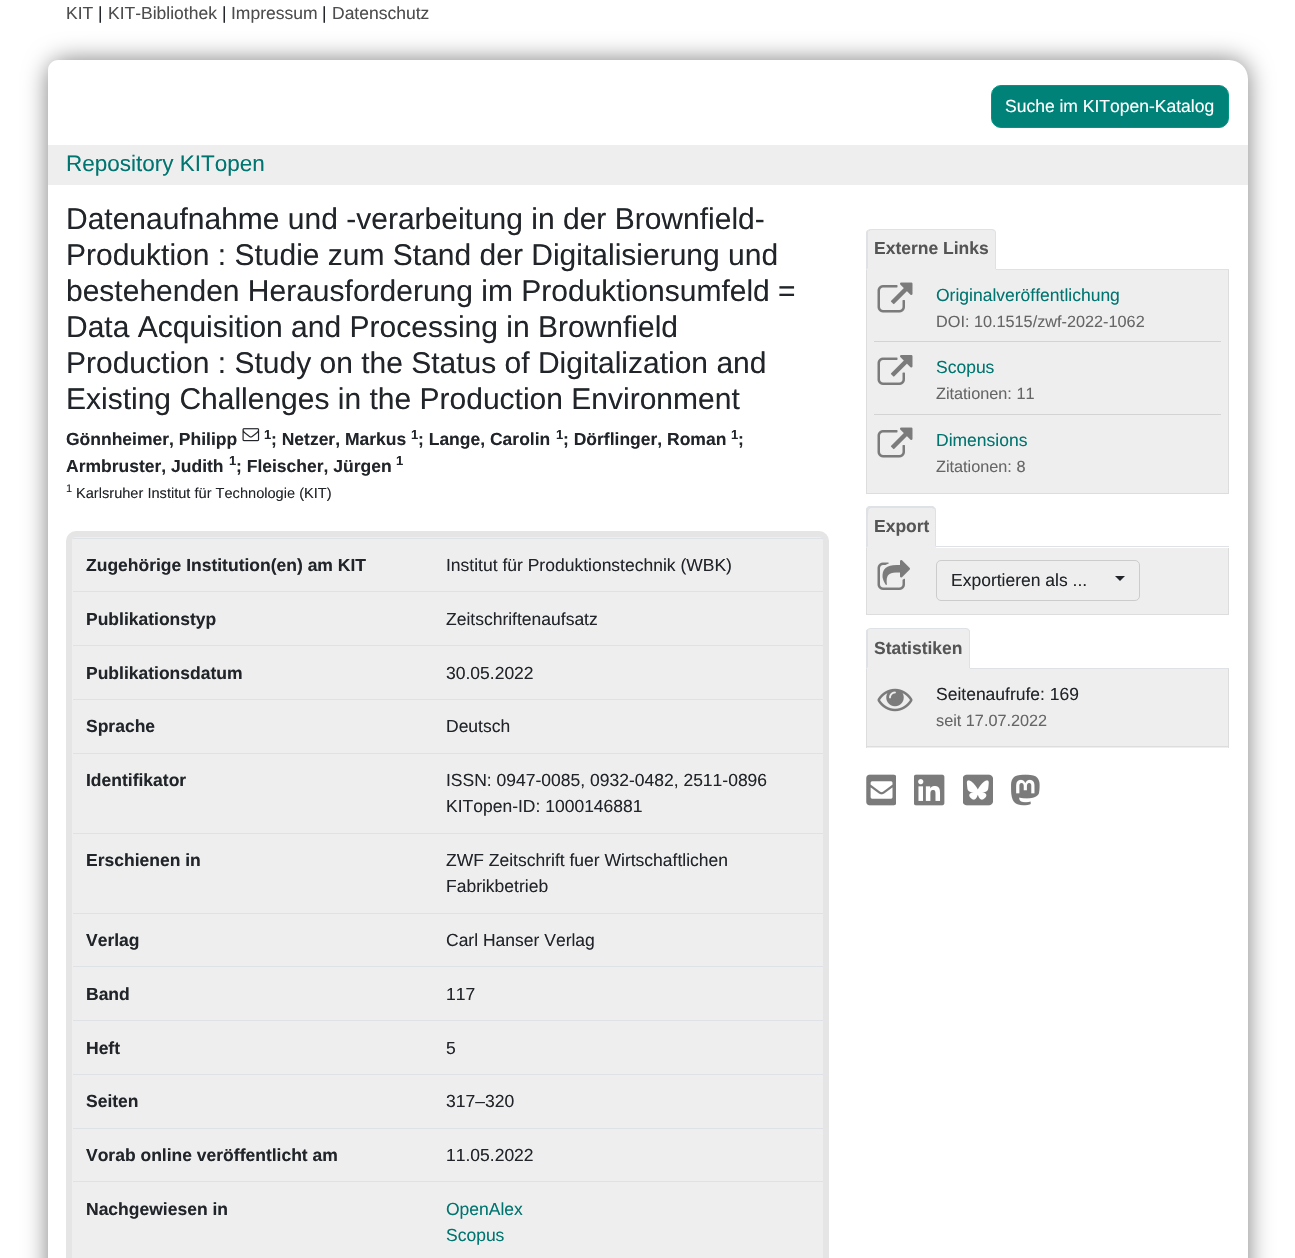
void draw(SkCanvas* canvas) {
    SkPaint paint;
    paint.setAntiAlias(true);
    auto face = [&](const char* family, int weight, float size, bool italic = false) {
        SkFontStyle style(weight, SkFontStyle::kNormal_Width,
            italic ? SkFontStyle::kItalic_Slant : SkFontStyle::kUpright_Slant);
        SkFont result(fontMgr->matchFamilyStyle(family, style), size);
        result.setSubpixel(true);
        return result;
    };
    auto write = [&](const char* s, float x, float y, const SkFont& font, SkColor color) {
        SkPaint ink(SkColor4f::FromColor(color));
        ink.setAntiAlias(true);
        canvas->drawString(s, x, y, font, ink);
    };
    auto block = [&](float x, float y, float w, float h, SkColor color) {
        SkPaint ink(SkColor4f::FromColor(color));
        ink.setAntiAlias(true);
        canvas->drawRect(SkRect::MakeXYWH(x, y, w, h), ink);
    };
    auto paste = [&](const char* path, float x, float y, float w, float h) {
        auto image = SkImages::DeferredFromEncodedData(SkData::MakeFromFileName(path));
        canvas->drawImageRect(image, SkRect::MakeXYWH(x, y, w, h), SkSamplingOptions());
    };
    canvas->clear(SK_ColorWHITE);
    auto kFont1 = face("Liberation Sans", 400, 17.5f);
    write("KIT", 66, 19, kFont1, SkColorSetRGB(77, 77, 77));
    canvas->save();
    canvas->clipPath(SkPathBuilder(SkPathFillType::kEvenOdd).moveTo(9, 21).lineTo(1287, 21).lineTo(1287, 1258).lineTo(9, 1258).close().moveTo(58, 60).lineTo(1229, 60).cubicTo(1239.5f, 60, 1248, 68.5f, 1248, 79).lineTo(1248, 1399).cubicTo(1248, 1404.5f, 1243.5f, 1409, 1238, 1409).lineTo(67, 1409).cubicTo(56.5f, 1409, 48, 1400.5f, 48, 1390).lineTo(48, 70).cubicTo(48, 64.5f, 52.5f, 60, 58, 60).close().detach(), true);
    paint.setColor(SkColorSetRGB(128, 128, 128));
    paint.setMaskFilter(SkMaskFilter::MakeBlur(kNormal_SkBlurStyle, 12.5f));
    canvas->drawRoundRect(SkRect::MakeXYWH(48, 60, 1200, 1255), 19, 19, paint);
    paint.setMaskFilter(nullptr);
    canvas->restore();
    write("|", 98, 19, kFont1, SkColorSetRGB(33, 37, 41));
    write("KIT-Bibliothek", 108, 19, kFont1, SkColorSetRGB(77, 77, 77));
    write("|", 222, 19, kFont1, SkColorSetRGB(33, 37, 41));
    write("Impressum", 231, 19, kFont1, SkColorSetRGB(77, 77, 77));
    write("|", 322, 19, kFont1, SkColorSetRGB(33, 37, 41));
    write("Datenschutz", 332, 19, kFont1, SkColorSetRGB(77, 77, 77));
    paint.setColor(SkColorSetRGB(0, 130, 120));
    canvas->drawRoundRect(SkRect::MakeXYWH(991.5f, 85.5f, 237, 42), 9.5f, 9.5f, paint);
    paint.setStyle(SkPaint::kStroke_Style);
    paint.setStrokeWidth(1);
    paint.setColor(SkColorSetRGB(0, 150, 130));
    canvas->drawRoundRect(SkRect::MakeXYWH(991.5f, 85.5f, 237, 42), 9.5f, 9.5f, paint);
    write("Suche im KITopen-Katalog", 1005, 112, kFont1, SK_ColorWHITE);
    block(48, 145, 1200, 40, SkColorSetRGB(238, 238, 238));
    auto kFont2 = face("Liberation Sans", 400, 22.5f);
    write("Repository KITopen", 66, 171, kFont2, SkColorSetRGB(0, 117, 112));
    auto kFont3 = face("Liberation Sans", 400, 30);
    write("Datenaufnahme und -verarbeitung in der Brownfield-", 66, 229, kFont3, SkColorSetRGB(33, 37, 41));
    write("Produktion : Studie zum Stand der Digitalisierung und", 66, 265, kFont3, SkColorSetRGB(33, 37, 41));
    write("bestehenden Herausforderung im Produktionsumfeld =", 66, 301, kFont3, SkColorSetRGB(33, 37, 41));
    write("Data Acquisition and Processing in Brownfield", 66, 337, kFont3, SkColorSetRGB(33, 37, 41));
    write("Production : Study on the Status of Digitalization and", 66, 373, kFont3, SkColorSetRGB(33, 37, 41));
    write("Existing Challenges in the Production Environment", 66, 409, kFont3, SkColorSetRGB(33, 37, 41));
    auto kFont4 = face("Liberation Sans", 700, 17.5f);
    write("Gönnheimer, Philipp", 66, 445, kFont4, SkColorSetRGB(33, 37, 41));
    paste("pic1.png", 242, 428, 18, 14);
    auto kFont5 = face("Liberation Sans", 700, 13);
    write("1", 264, 439, kFont5, SkColorSetRGB(33, 37, 41));
    write("; Netzer, Markus", 271, 445, kFont4, SkColorSetRGB(33, 37, 41));
    write("1", 411, 439, kFont5, SkColorSetRGB(33, 37, 41));
    write("; Lange, Carolin", 418, 445, kFont4, SkColorSetRGB(33, 37, 41));
    write("1", 556, 439, kFont5, SkColorSetRGB(33, 37, 41));
    write("; Dörflinger, Roman", 563, 445, kFont4, SkColorSetRGB(33, 37, 41));
    write("1", 731, 439, kFont5, SkColorSetRGB(33, 37, 41));
    write(";", 738, 445, kFont4, SkColorSetRGB(33, 37, 41));
    write("Armbruster, Judith", 66, 472, kFont4, SkColorSetRGB(33, 37, 41));
    write("1", 229, 465, kFont5, SkColorSetRGB(33, 37, 41));
    write("; Fleischer, Jürgen", 236, 472, kFont4, SkColorSetRGB(33, 37, 41));
    write("1", 396, 465, kFont5, SkColorSetRGB(33, 37, 41));
    auto kFont6 = face("Liberation Sans", 400, 11);
    write("1", 66, 492, kFont6, SkColorSetRGB(33, 37, 41));
    auto kFont7 = face("Liberation Sans", 400, 14.6f);
    write("Karlsruher Institut für Technologie (KIT)", 76, 498, kFont7, SkColorSetRGB(33, 37, 41));
    paint.setStyle(SkPaint::kFill_Style);
    paint.setColor(SkColorSetRGB(238, 238, 238));
    canvas->drawRoundRect(SkRect::MakeXYWH(69, 534, 757, 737), 7, 7, paint);
    paint.setStyle(SkPaint::kStroke_Style);
    paint.setStrokeWidth(6);
    paint.setColor(SkColorSetRGB(229, 229, 229));
    canvas->drawRoundRect(SkRect::MakeXYWH(69, 534, 757, 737), 7, 7, paint);
    write("Zugehörige Institution(en) am KIT", 86, 571, kFont4, SkColorSetRGB(33, 37, 41));
    block(73, 538, 750, 1, SkColorSetRGB(222, 226, 230));
    write("Institut für Produktionstechnik (WBK)", 446, 571, kFont1, SkColorSetRGB(33, 37, 41));
    write("Publikationstyp", 86, 625, kFont4, SkColorSetRGB(33, 37, 41));
    block(73, 591, 750, 1, SkColorSetRGB(222, 226, 230));
    write("Zeitschriftenaufsatz", 446, 625, kFont1, SkColorSetRGB(33, 37, 41));
    write("Publikationsdatum", 86, 679, kFont4, SkColorSetRGB(33, 37, 41));
    block(73, 645, 750, 1, SkColorSetRGB(222, 226, 230));
    write("30.05.2022", 446, 679, kFont1, SkColorSetRGB(33, 37, 41));
    write("Sprache", 86, 732, kFont4, SkColorSetRGB(33, 37, 41));
    block(73, 699, 750, 1, SkColorSetRGB(222, 226, 230));
    write("Deutsch", 446, 732, kFont1, SkColorSetRGB(33, 37, 41));
    write("Identifikator", 86, 786, kFont4, SkColorSetRGB(33, 37, 41));
    block(73, 753, 750, 1, SkColorSetRGB(222, 226, 230));
    write("ISSN: 0947-0085, 0932-0482, 2511-0896", 446, 786, kFont1, SkColorSetRGB(33, 37, 41));
    write("KITopen-ID: 1000146881", 446, 812, kFont1, SkColorSetRGB(33, 37, 41));
    write("Erschienen in", 86, 866, kFont4, SkColorSetRGB(33, 37, 41));
    block(73, 833, 750, 1, SkColorSetRGB(222, 226, 230));
    write("ZWF Zeitschrift fuer Wirtschaftlichen", 446, 866, kFont1, SkColorSetRGB(33, 37, 41));
    write("Fabrikbetrieb", 446, 892, kFont1, SkColorSetRGB(33, 37, 41));
    write("Verlag", 86, 946, kFont4, SkColorSetRGB(33, 37, 41));
    block(73, 913, 750, 1, SkColorSetRGB(222, 226, 230));
    write("Carl Hanser Verlag", 446, 946, kFont1, SkColorSetRGB(33, 37, 41));
    write("Band", 86, 1000, kFont4, SkColorSetRGB(33, 37, 41));
    block(73, 966, 750, 1, SkColorSetRGB(222, 226, 230));
    write("117", 446, 1000, kFont1, SkColorSetRGB(33, 37, 41));
    write("Heft", 86, 1054, kFont4, SkColorSetRGB(33, 37, 41));
    block(73, 1020, 750, 1, SkColorSetRGB(222, 226, 230));
    write("5", 446, 1054, kFont1, SkColorSetRGB(33, 37, 41));
    write("Seiten", 86, 1107, kFont4, SkColorSetRGB(33, 37, 41));
    block(73, 1074, 750, 1, SkColorSetRGB(222, 226, 230));
    write("317–320", 446, 1107, kFont1, SkColorSetRGB(33, 37, 41));
    write("Vorab online veröffentlicht am", 86, 1161, kFont4, SkColorSetRGB(33, 37, 41));
    block(73, 1128, 750, 1, SkColorSetRGB(222, 226, 230));
    write("11.05.2022", 446, 1161, kFont1, SkColorSetRGB(33, 37, 41));
    write("Nachgewiesen in", 86, 1215, kFont4, SkColorSetRGB(33, 37, 41));
    block(73, 1181, 750, 1, SkColorSetRGB(222, 226, 230));
    write("OpenAlex", 446, 1215, kFont1, SkColorSetRGB(0, 117, 112));
    write("Scopus", 446, 1241, kFont1, SkColorSetRGB(0, 117, 112));
    block(996, 269, 233, 1, SkColorSetRGB(222, 226, 230));
    paint.setStyle(SkPaint::kFill_Style);
    paint.setColor(SkColorSetRGB(238, 238, 238));
    canvas->drawPath(SkPathBuilder().moveTo(871, 229).lineTo(991, 229).cubicTo(994, 229, 996, 231, 996, 234).lineTo(996, 270).lineTo(866, 270).lineTo(866, 234).cubicTo(866, 231, 868, 229, 871, 229).close().detach(), paint);
    paint.setColor(SkColorSetRGB(222, 226, 230));
    canvas->drawPath(SkPathBuilder().moveTo(871, 229).lineTo(868, 230).lineTo(869, 231).lineTo(871, 230).lineTo(992, 230).lineTo(994, 231).lineTo(995, 230).lineTo(992, 229).close().detach(), paint);
    canvas->drawPath(SkPathBuilder().moveTo(996, 270).lineTo(996, 233).cubicTo(996, 232, 995.5f, 231, 995, 230).lineTo(994, 231).cubicTo(995, 231, 995, 232, 995, 233).lineTo(995, 269).close().detach(), paint);
    paint.setColor(SkColorSetRGB(238, 238, 238));
    canvas->drawPath(SkPathBuilder().moveTo(866, 270).lineTo(996, 270).lineTo(995, 269).lineTo(868, 269).lineTo(868, 268).close().detach(), paint);
    paint.setColor(SkColorSetRGB(222, 226, 230));
    canvas->drawPath(SkPathBuilder().moveTo(866, 270).lineTo(868, 268).lineTo(868, 233).cubicTo(868, 232, 868, 231.5f, 868.5f, 231).lineTo(867.5f, 230).lineTo(866, 232).close().detach(), paint);
    write("Externe Links", 874, 254, kFont4, SkColorSetRGB(85, 85, 85));
    block(867, 270, 361, 223, SkColorSetRGB(238, 238, 238));
    block(1228, 270, 1, 224, SkColorSetRGB(221, 221, 221));
    block(866, 493, 363, 1, SkColorSetRGB(221, 221, 221));
    block(866, 270, 1, 224, SkColorSetRGB(221, 221, 221));
    block(874, 341, 347, 1, SkColorSetRGB(211, 211, 211));
    paste("pic2.png", 877, 282, 36, 31);
    write("Originalveröffentlichung", 936, 301, kFont1, SkColorSetRGB(0, 117, 112));
    auto kFont8 = face("Liberation Sans", 400, 16.25f);
    write("DOI: 10.1515/zwf-2022-1062", 936, 327, kFont8, SkColorSetRGB(102, 102, 102));
    block(874, 414, 347, 1, SkColorSetRGB(211, 211, 211));
    paste("pic3.png", 877, 355, 36, 30);
    write("Scopus", 936, 373, kFont1, SkColorSetRGB(0, 117, 112));
    write("Zitationen: 11", 936, 399, kFont8, SkColorSetRGB(102, 102, 102));
    paste("pic2.png", 877, 427, 36, 31);
    write("Dimensions", 936, 446, kFont1, SkColorSetRGB(0, 117, 112));
    write("Zitationen: 8", 936, 472, kFont8, SkColorSetRGB(102, 102, 102));
    block(936, 546, 293, 1, SkColorSetRGB(222, 226, 230));
    paint.setColor(SkColorSetRGB(238, 238, 238));
    canvas->drawPath(SkPathBuilder().moveTo(871, 506).lineTo(931, 506).cubicTo(934, 506, 936, 508, 936, 511).lineTo(936, 548).lineTo(866, 548).lineTo(866, 511).cubicTo(866, 508, 868, 506, 871, 506).close().detach(), paint);
    paint.setColor(SkColorSetRGB(222, 226, 230));
    canvas->drawPath(SkPathBuilder().moveTo(871, 508).lineTo(869, 509).lineTo(867, 507).lineTo(869, 506).lineTo(933, 506).lineTo(935, 508).lineTo(934, 509).lineTo(932, 508).close().detach(), paint);
    canvas->drawPath(SkPathBuilder().moveTo(935, 507.5f).cubicTo(935.5f, 508.5f, 936, 509.5f, 936, 511).lineTo(936, 547).lineTo(935, 546).lineTo(935, 511).cubicTo(935, 510, 934.5f, 509, 934, 508.5f).close().detach(), paint);
    paint.setColor(SkColorSetRGB(238, 238, 238));
    canvas->drawPath(SkPathBuilder().moveTo(936, 547).lineTo(866, 548).lineTo(868, 546).lineTo(935, 546).close().detach(), paint);
    paint.setColor(SkColorSetRGB(222, 226, 230));
    canvas->drawPath(SkPathBuilder().moveTo(866, 548).lineTo(866, 509).lineTo(867, 507).lineTo(869, 509).cubicTo(867, 511, 868, 541, 868, 546).close().detach(), paint);
    write("Export", 874, 532, kFont4, SkColorSetRGB(85, 85, 85));
    block(867, 548, 361, 66, SkColorSetRGB(238, 238, 238));
    block(1228, 548, 1, 67, SkColorSetRGB(221, 221, 221));
    block(866, 614, 363, 1, SkColorSetRGB(221, 221, 221));
    block(866, 548, 1, 67, SkColorSetRGB(221, 221, 221));
    paste("pic4.png", 877, 560, 33, 30);
    paint.setStyle(SkPaint::kStroke_Style);
    paint.setStrokeWidth(1);
    paint.setColor(SkColorSetRGB(204, 204, 204));
    canvas->drawRoundRect(SkRect::MakeXYWH(936.5f, 560.5f, 203, 40), 4.5f, 4.5f, paint);
    write("Exportieren als ...", 951, 586, kFont1, SkColorSetRGB(33, 37, 41));
    paint.setStyle(SkPaint::kFill_Style);
    paint.setColor(SkColorSetRGB(33, 37, 41));
    canvas->drawPath(SkPathBuilder().moveTo(1115, 576).lineTo(1125, 576).lineTo(1120, 581).close().detach(), paint);
    block(970, 668, 259, 1, SkColorSetRGB(222, 226, 230));
    paint.setColor(SkColorSetRGB(238, 238, 238));
    canvas->drawPath(SkPathBuilder().moveTo(871, 628).lineTo(965, 628).cubicTo(968, 628, 970, 630, 970, 633).lineTo(970, 669).lineTo(866, 669).lineTo(866, 633).cubicTo(866, 630, 868, 628, 871, 628).close().detach(), paint);
    paint.setColor(SkColorSetRGB(222, 226, 230));
    canvas->drawPath(SkPathBuilder().moveTo(871, 628).lineTo(868, 629).lineTo(869, 630).cubicTo(869, 629, 870, 629, 871, 629).lineTo(966, 629).lineTo(968, 630).lineTo(969, 629).lineTo(966, 628).close().detach(), paint);
    canvas->drawPath(SkPathBuilder().moveTo(968.5f, 629).cubicTo(969.5f, 629.5f, 970, 630.5f, 970, 632).lineTo(970, 669).lineTo(969, 668).lineTo(969, 631.5f).lineTo(968, 629.5f).close().detach(), paint);
    paint.setColor(SkColorSetRGB(238, 238, 238));
    canvas->drawPath(SkPathBuilder().moveTo(970, 669).lineTo(969, 668).lineTo(868, 668).lineTo(868, 667).lineTo(866, 669).close().detach(), paint);
    paint.setColor(SkColorSetRGB(222, 226, 230));
    canvas->drawPath(SkPathBuilder().moveTo(866, 669).lineTo(868, 667).lineTo(868, 632).cubicTo(868, 631, 868, 630.5f, 868.5f, 630).lineTo(867.5f, 629).lineTo(866, 630.5f).close().detach(), paint);
    write("Statistiken", 874, 654, kFont4, SkColorSetRGB(85, 85, 85));
    block(867, 669, 361, 79, SkColorSetRGB(238, 238, 238));
    block(1228, 669, 1, 79, SkColorSetRGB(221, 221, 221));
    block(866, 746, 363, 1, SkColorSetRGB(221, 221, 221));
    block(866, 669, 1, 79, SkColorSetRGB(221, 221, 221));
    paste("pic5.png", 877, 688, 36, 24);
    write("Seitenaufrufe: 169", 936, 700, kFont1, SkColorSetRGB(33, 37, 41));
    write("seit 17.07.2022", 936, 726, kFont8, SkColorSetRGB(102, 102, 102));
    paste("pic6.png", 866, 774, 30, 32);
    paste("pic7.png", 914, 774, 31, 32);
    paste("pic8.png", 963, 774, 30, 32);
    paste("pic9.png", 1011, 774, 29, 32);
}
